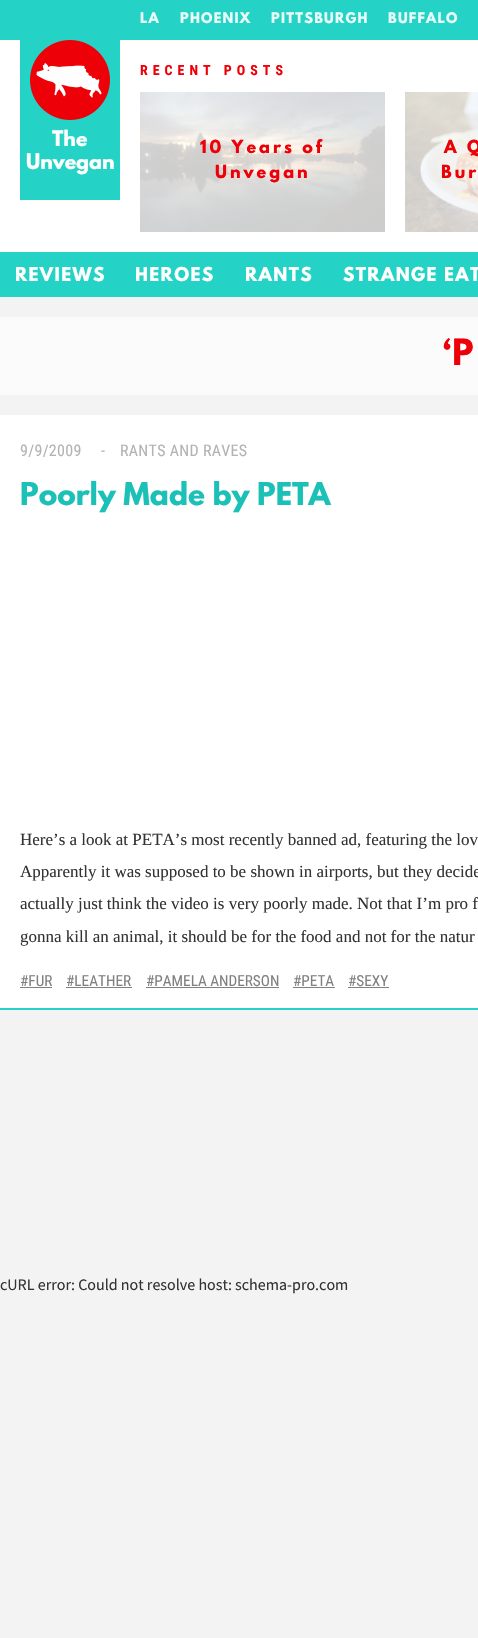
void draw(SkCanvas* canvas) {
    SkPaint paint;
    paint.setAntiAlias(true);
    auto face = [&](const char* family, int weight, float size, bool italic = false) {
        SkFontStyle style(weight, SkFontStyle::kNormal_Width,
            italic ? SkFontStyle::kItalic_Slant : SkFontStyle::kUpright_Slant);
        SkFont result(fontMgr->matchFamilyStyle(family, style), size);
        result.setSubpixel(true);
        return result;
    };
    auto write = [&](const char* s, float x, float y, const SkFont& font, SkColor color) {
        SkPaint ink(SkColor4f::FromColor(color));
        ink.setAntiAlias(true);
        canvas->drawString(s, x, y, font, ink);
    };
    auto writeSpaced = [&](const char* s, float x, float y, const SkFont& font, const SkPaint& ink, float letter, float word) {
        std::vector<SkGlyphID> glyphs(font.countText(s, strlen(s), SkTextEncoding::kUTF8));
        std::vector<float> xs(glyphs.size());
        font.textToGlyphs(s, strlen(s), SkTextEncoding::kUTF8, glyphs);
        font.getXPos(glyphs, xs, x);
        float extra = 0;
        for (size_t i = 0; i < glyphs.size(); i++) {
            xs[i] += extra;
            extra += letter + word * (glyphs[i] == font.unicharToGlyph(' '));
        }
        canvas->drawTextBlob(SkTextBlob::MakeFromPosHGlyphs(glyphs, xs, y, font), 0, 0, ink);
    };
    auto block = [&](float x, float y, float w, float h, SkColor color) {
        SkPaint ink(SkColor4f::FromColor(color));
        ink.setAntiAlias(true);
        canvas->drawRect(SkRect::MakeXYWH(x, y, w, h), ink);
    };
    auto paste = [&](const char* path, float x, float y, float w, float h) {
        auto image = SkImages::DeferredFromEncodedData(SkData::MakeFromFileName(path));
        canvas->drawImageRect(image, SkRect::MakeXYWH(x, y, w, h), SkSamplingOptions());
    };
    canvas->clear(SkColorSetRGB(243, 243, 243));
    block(0, 0, 478, 40, SkColorSetRGB(36, 211, 197));
    auto kFont1 = face("League Spartan", 700, 13);
    paint.setColor(SkColorSetRGB(233, 251, 249));
    writeSpaced("LA", 140, 23, kFont1, paint, 1.25f, 0);
    writeSpaced("PHOENIX", 180, 23, kFont1, paint, 1.25f, 0);
    writeSpaced("PITTSBURGH", 271, 23, kFont1, paint, 1.25f, 0);
    writeSpaced("BUFFALO", 388, 23, kFont1, paint, 1.25f, 0);
    block(0, 40, 478, 212, SK_ColorWHITE);
    block(20, 40, 100, 160, SkColorSetRGB(36, 211, 197));
    paste("pic1.png", 30, 40, 80, 80);
    auto kFont2 = face("League Spartan", 700, 19);
    write("The", 52, 146, kFont2, SK_ColorWHITE);
    write("Unvegan", 26, 169, kFont2, SK_ColorWHITE);
    auto kFont3 = face("Roboto Condensed", 700, 14);
    paint.setColor(SkColorSetRGB(237, 0, 7));
    writeSpaced("RECENT POSTS", 140, 75, kFont3, paint, 5, 0);
    paste("pic2.png", 140, 92, 245, 140);
    auto kFont4 = face("League Spartan", 700, 16);
    writeSpaced("10 Years of", 200, 153, kFont4, paint, 3, 0);
    writeSpaced("Unvegan", 215, 178, kFont4, paint, 3, 0);
    paste("pic3.png", 405, 92, 73, 140);
    writeSpaced("A Q", 444, 153, kFont4, paint, 3, 0);
    writeSpaced("Bur", 441, 178, kFont4, paint, 3, 0);
    block(0, 252, 478, 45, SkColorSetRGB(36, 211, 197));
    auto kFont5 = face("League Spartan", 700, 17);
    paint.setColor(SK_ColorWHITE);
    writeSpaced("REVIEWS", 15, 281, kFont5, paint, 1.4f, 0);
    writeSpaced("HEROES", 135, 281, kFont5, paint, 1.4f, 0);
    writeSpaced("RANTS", 245, 281, kFont5, paint, 1.4f, 0);
    writeSpaced("STRANGE EAT", 343, 281, kFont5, paint, 1.4f, 0);
    block(0, 317, 478, 78, SkColorSetRGB(251, 251, 251));
    auto kFont6 = face("League Spartan", 700, 32);
    write("‘P", 443, 365, kFont6, SkColorSetRGB(237, 0, 7));
    block(0, 415, 478, 593, SK_ColorWHITE);
    block(0, 1008, 478, 2, SkColorSetRGB(36, 211, 197));
    auto kFont7 = face("Roboto Condensed", 400, 16);
    paint.setColor(SkColorSetRGB(179, 179, 179));
    writeSpaced("9/9/2009", 20, 456, kFont7, paint, 0.3f, 0);
    writeSpaced("-", 101, 456, kFont7, paint, 0.3f, 0);
    writeSpaced("RANTS AND RAVES", 120, 456, kFont7, paint, 0.3f, 0);
    auto kFont8 = face("League Spartan", 700, 28);
    write("Poorly Made by PETA", 20, 505, kFont8, SkColorSetRGB(27, 192, 183));
    auto kFont9 = face("Liberation Serif", 400, 17);
    write("Here’s a look at PETA’s most recently banned ad, featuring the lov", 20, 845, kFont9, SkColorSetRGB(51, 51, 51));
    write("Apparently it was supposed to be shown in airports, but they decide", 20, 877, kFont9, SkColorSetRGB(51, 51, 51));
    write("actually just think the video is very poorly made. Not that I’m pro f", 20, 909, kFont9, SkColorSetRGB(51, 51, 51));
    write("gonna kill an animal, it should be for the food and not for the natur", 20, 942, kFont9, SkColorSetRGB(51, 51, 51));
    auto kFont10 = face("Roboto Condensed", 400, 15.25f);
    write("#FUR", 20, 986, kFont10, SkColorSetRGB(128, 128, 128));
    block(20, 987, 32, 1, SkColorSetRGB(128, 128, 128));
    write("#LEATHER", 66, 986, kFont10, SkColorSetRGB(128, 128, 128));
    block(66, 987, 66, 1, SkColorSetRGB(128, 128, 128));
    write("#PAMELA ANDERSON", 146, 986, kFont10, SkColorSetRGB(128, 128, 128));
    block(146, 987, 133, 1, SkColorSetRGB(128, 128, 128));
    write("#PETA", 293, 986, kFont10, SkColorSetRGB(128, 128, 128));
    block(293, 987, 42, 1, SkColorSetRGB(128, 128, 128));
    write("#SEXY", 348, 986, kFont10, SkColorSetRGB(128, 128, 128));
    block(348, 987, 41, 1, SkColorSetRGB(128, 128, 128));
    auto kFont11 = face("Source Sans Pro", 400, 16);
    write("cURL error: Could not resolve host: schema-pro.com", 0, 1290, kFont11, SkColorSetRGB(51, 51, 51));
}
